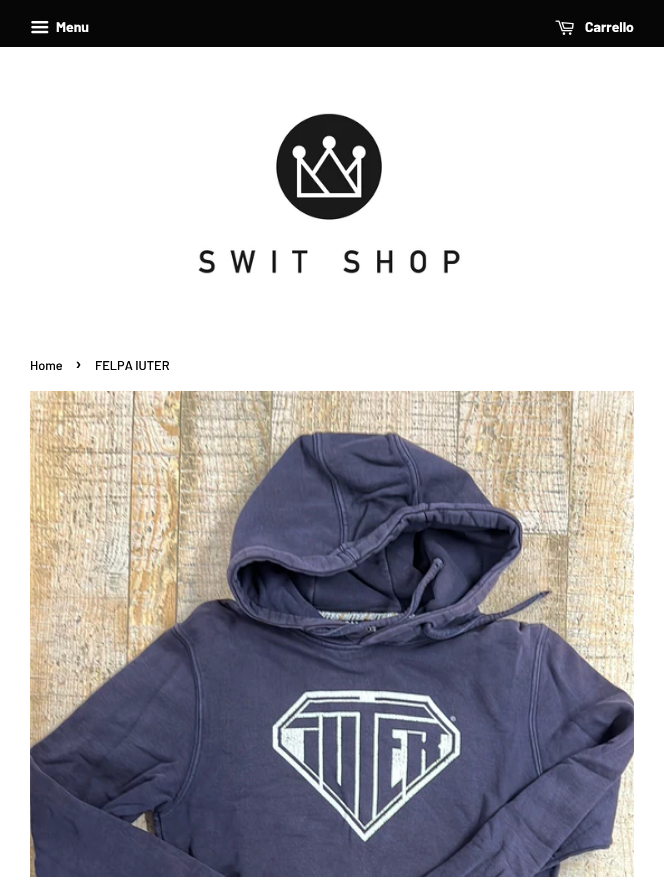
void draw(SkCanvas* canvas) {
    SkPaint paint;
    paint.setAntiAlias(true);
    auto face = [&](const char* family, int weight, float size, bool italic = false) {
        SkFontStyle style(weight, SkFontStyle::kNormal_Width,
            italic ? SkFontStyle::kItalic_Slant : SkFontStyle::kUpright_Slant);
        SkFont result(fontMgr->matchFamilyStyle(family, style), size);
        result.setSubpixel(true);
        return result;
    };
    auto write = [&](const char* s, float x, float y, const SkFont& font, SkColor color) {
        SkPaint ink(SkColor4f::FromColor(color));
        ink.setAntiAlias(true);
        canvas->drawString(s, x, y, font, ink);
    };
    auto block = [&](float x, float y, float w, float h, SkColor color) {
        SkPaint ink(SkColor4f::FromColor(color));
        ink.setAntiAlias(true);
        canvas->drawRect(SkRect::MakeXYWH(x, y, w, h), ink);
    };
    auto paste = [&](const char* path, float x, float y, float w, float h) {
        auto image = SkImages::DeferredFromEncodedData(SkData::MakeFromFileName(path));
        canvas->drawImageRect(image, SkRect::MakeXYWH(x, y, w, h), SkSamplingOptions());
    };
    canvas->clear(SK_ColorWHITE);
    block(0, 0, 664, 47, SkColorSetRGB(6, 6, 6));
    paste("pic1.png", 31, 21, 18, 13);
    auto kFont1 = face("Barlow", 700, 14);
    write("Menu", 56, 32, kFont1, SK_ColorWHITE);
    paste("pic2.png", 555, 20, 19, 15);
    write("Carrello", 585, 32, kFont1, SK_ColorWHITE);
    paste("pic3.png", 198, 113, 264, 161);
    auto kFont2 = face("Barlow", 500, 12.75f);
    write("Home", 30, 370, kFont2, SK_ColorBLACK);
    auto kFont3 = face("Barlow", 500, 18);
    write("›", 75, 370, kFont3, SK_ColorBLACK);
    write("FELPA IUTER", 95, 370, kFont2, SK_ColorBLACK);
    paste("pic4.png", 30, 391, 604, 486);
}
